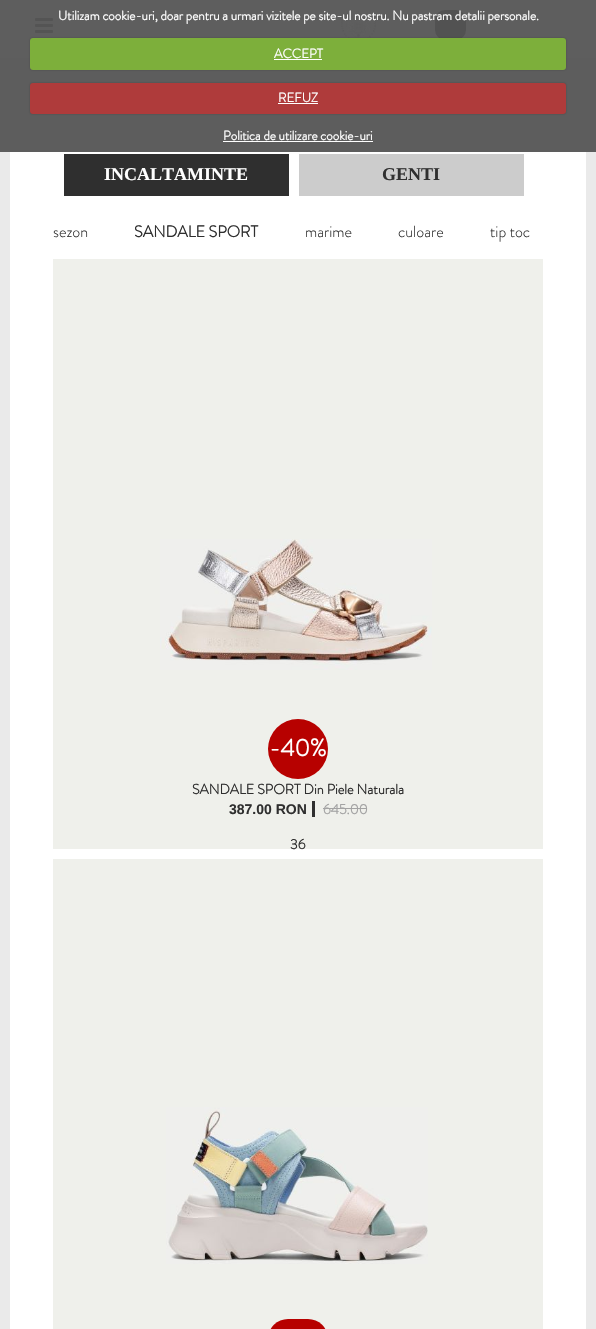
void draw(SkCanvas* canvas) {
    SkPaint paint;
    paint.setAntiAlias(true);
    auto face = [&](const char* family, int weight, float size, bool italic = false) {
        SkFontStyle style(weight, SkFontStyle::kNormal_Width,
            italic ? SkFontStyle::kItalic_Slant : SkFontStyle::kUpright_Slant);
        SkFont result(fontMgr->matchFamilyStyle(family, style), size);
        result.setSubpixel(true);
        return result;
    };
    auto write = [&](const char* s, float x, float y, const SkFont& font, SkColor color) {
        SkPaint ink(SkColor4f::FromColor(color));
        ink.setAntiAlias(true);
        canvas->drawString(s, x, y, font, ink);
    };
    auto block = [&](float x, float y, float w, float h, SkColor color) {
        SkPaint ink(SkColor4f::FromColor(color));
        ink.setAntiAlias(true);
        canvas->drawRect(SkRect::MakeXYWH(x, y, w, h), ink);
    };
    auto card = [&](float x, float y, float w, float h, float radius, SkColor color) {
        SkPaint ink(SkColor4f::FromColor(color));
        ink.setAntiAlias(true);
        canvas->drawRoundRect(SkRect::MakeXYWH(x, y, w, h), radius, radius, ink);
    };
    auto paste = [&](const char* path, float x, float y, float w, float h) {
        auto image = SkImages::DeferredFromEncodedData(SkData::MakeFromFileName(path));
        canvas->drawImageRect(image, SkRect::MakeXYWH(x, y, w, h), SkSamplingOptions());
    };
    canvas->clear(SkColorSetRGB(234, 234, 234));
    block(0, 0, 596, 58, SkColorSetRGB(94, 94, 94));
    paste("pic1.png", 35, 18, 18, 15);
    paste("pic2.png", 341, 11, 35, 27);
    card(435, 10, 31, 30, 10, SkColorSetRGB(82, 82, 82));
    auto kFont1 = face("Brandon Grotesque", 700, 13);
    write("Utilizam cookie-uri, doar pentru a urmari vizitele pe site-ul nostru. Nu pastram detalii personale.", 58, 20, kFont1, SK_ColorWHITE);
    block(0, 58, 596, 94, SkColorSetRGB(93, 93, 93));
    paint.setColor(SkColorSetARGB(64, 0, 0, 0));
    paint.setMaskFilter(SkMaskFilter::MakeBlur(kNormal_SkBlurStyle, 1));
    canvas->drawRoundRect(SkRect::MakeXYWH(30, 38, 536, 32), 3, 3, paint);
    paint.setMaskFilter(nullptr);
    card(30, 38, 536, 32, 3, SkColorSetRGB(125, 175, 59));
    write("ACCEPT", 274, 58, kFont1, SK_ColorWHITE);
    block(274, 59, 48, 1, SK_ColorWHITE);
    paint.setMaskFilter(SkMaskFilter::MakeBlur(kNormal_SkBlurStyle, 1));
    canvas->drawRoundRect(SkRect::MakeXYWH(30, 83, 536, 31), 3, 3, paint);
    paint.setMaskFilter(nullptr);
    card(30, 83, 536, 31, 3, SkColorSetRGB(175, 59, 59));
    write("REFUZ", 278, 102, kFont1, SK_ColorWHITE);
    block(278, 103, 40, 1, SK_ColorWHITE);
    write("Politica de utilizare cookie-uri", 223, 140, kFont1, SK_ColorWHITE);
    block(223, 141, 150, 1, SK_ColorWHITE);
    block(10, 152, 576, 1177, SK_ColorWHITE);
    block(64, 154, 225, 42, SkColorSetRGB(47, 47, 47));
    auto kFont2 = face("Liberation Serif", 700, 18);
    write("INCALTAMINTE", 104, 180, kFont2, SK_ColorWHITE);
    block(299, 154, 225, 42, SkColorSetRGB(204, 204, 204));
    write("GENTI", 382, 180, kFont2, SkColorSetRGB(47, 47, 47));
    auto kFont3 = face("Brandon Grotesque", 300, 16);
    write("sezon", 53, 237, kFont3, SkColorSetRGB(47, 47, 47));
    auto kFont4 = face("Brandon Grotesque", 700, 16);
    write("SANDALE SPORT", 134, 237, kFont4, SkColorSetRGB(47, 47, 47));
    write("marime", 305, 237, kFont3, SkColorSetRGB(47, 47, 47));
    write("culoare", 398, 237, kFont3, SkColorSetRGB(47, 47, 47));
    write("tip toc", 490, 237, kFont3, SkColorSetRGB(47, 47, 47));
    block(53, 259, 490, 590, SkColorSetRGB(239, 240, 235));
    paste("pic3.png", 160, 539, 272, 131);
    paint.setColor(SkColorSetRGB(183, 1, 0));
    canvas->drawCircle(298, 749, 30, paint);
    auto kFont5 = face("Brandon Grotesque", 700, 24);
    write("-40%", 269, 756, kFont5, SK_ColorWHITE);
    auto kFont6 = face("Brandon Grotesque", 700, 14);
    write("SANDALE SPORT Din Piele Naturala", 192, 794, kFont6, SkColorSetRGB(47, 47, 47));
    auto kFont7 = face("Liberation Sans", 700, 14);
    write("387.00 RON", 229, 814, kFont7, SkColorSetRGB(47, 47, 47));
    block(312, 801, 3, 16, SkColorSetRGB(47, 47, 47));
    write("645.00", 323, 814, kFont6, SkColorSetRGB(163, 163, 163));
    block(323, 808, 44, 1, SkColorSetRGB(163, 163, 163));
    write("36", 290, 849, kFont6, SkColorSetRGB(47, 47, 47));
    block(53, 859, 490, 470, SkColorSetRGB(239, 240, 235));
    paste("pic4.png", 166, 1107, 262, 157);
    card(268, 1319, 60, 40, 30, SkColorSetRGB(183, 1, 0));
}
